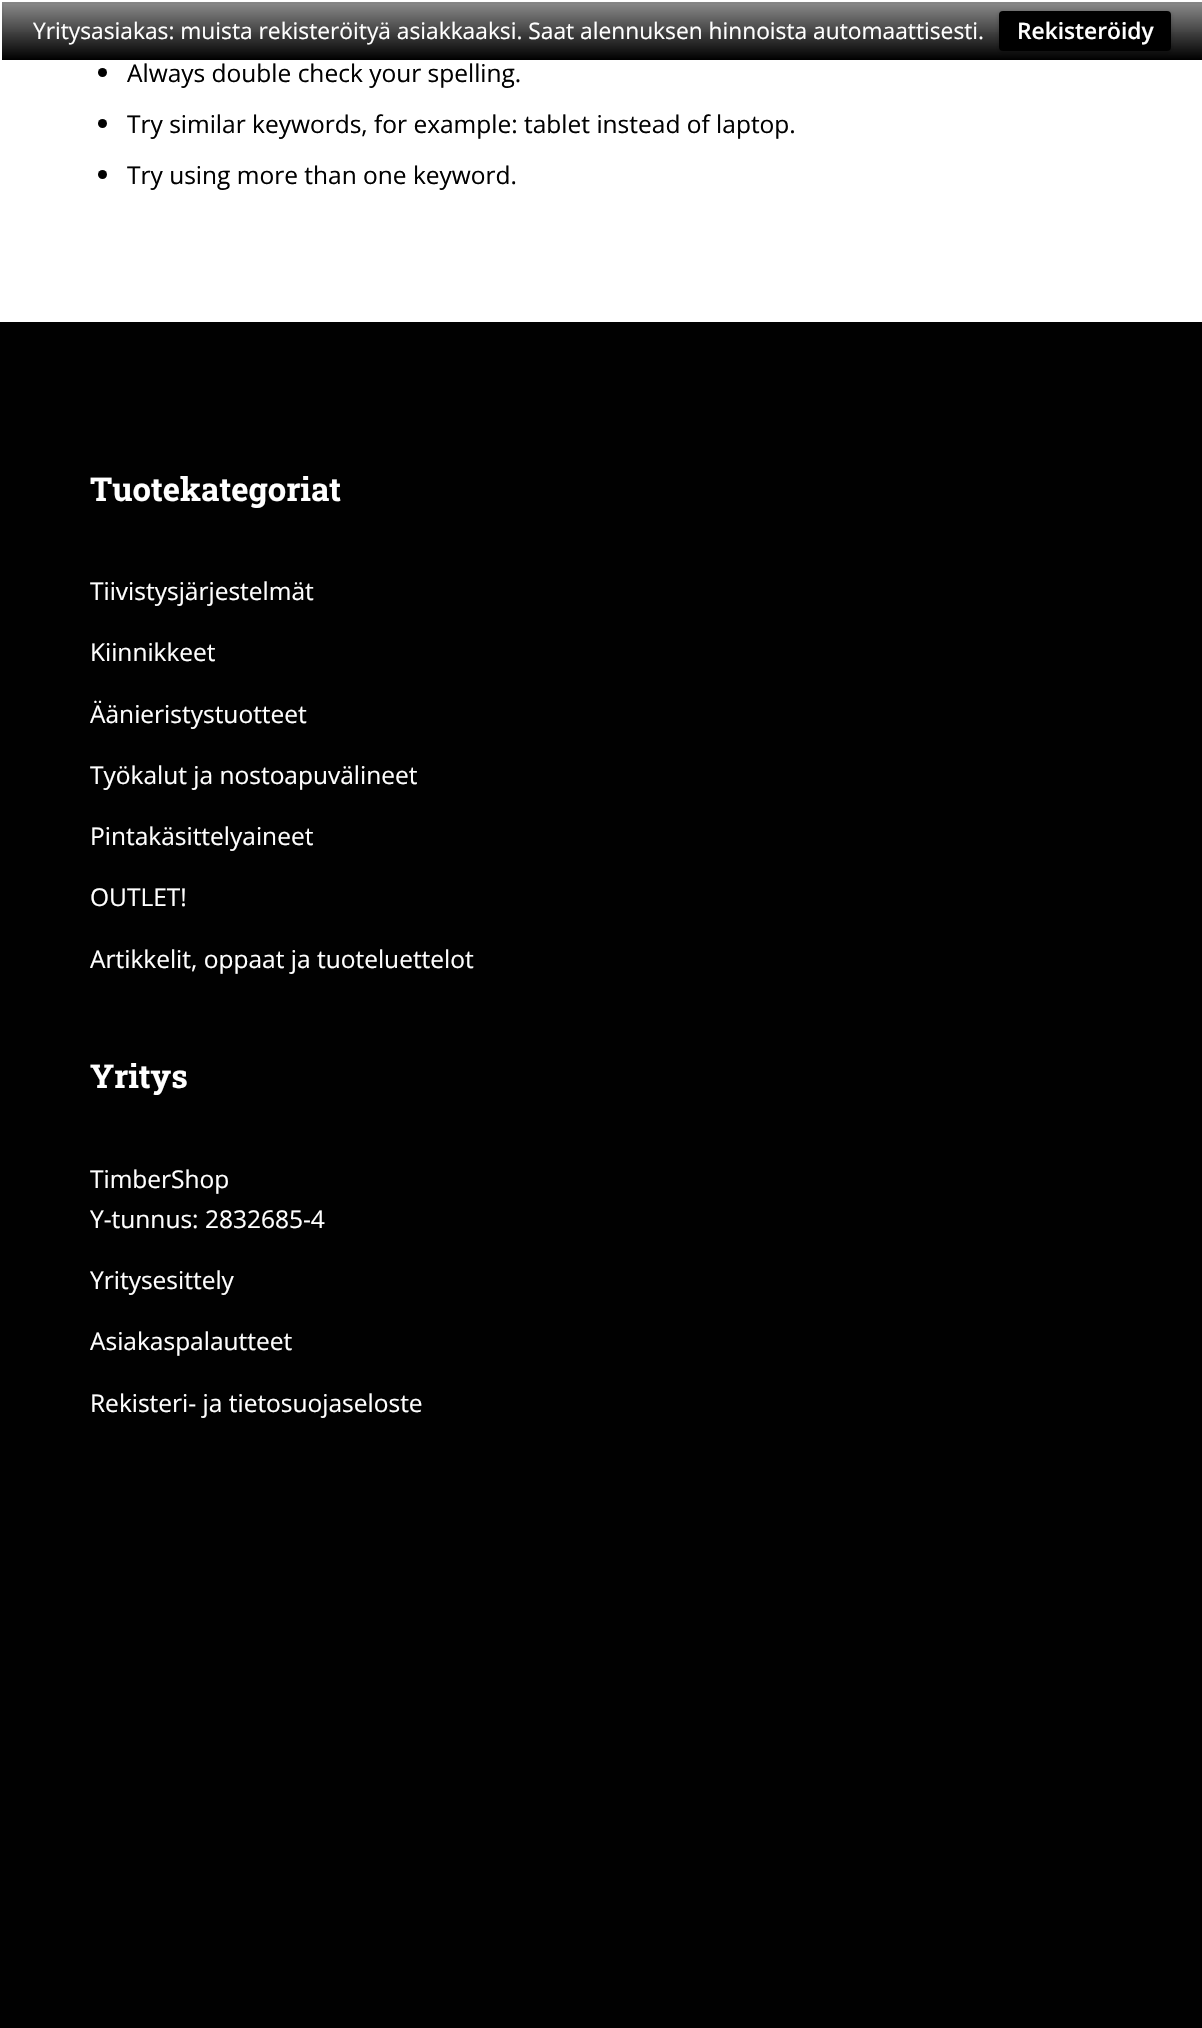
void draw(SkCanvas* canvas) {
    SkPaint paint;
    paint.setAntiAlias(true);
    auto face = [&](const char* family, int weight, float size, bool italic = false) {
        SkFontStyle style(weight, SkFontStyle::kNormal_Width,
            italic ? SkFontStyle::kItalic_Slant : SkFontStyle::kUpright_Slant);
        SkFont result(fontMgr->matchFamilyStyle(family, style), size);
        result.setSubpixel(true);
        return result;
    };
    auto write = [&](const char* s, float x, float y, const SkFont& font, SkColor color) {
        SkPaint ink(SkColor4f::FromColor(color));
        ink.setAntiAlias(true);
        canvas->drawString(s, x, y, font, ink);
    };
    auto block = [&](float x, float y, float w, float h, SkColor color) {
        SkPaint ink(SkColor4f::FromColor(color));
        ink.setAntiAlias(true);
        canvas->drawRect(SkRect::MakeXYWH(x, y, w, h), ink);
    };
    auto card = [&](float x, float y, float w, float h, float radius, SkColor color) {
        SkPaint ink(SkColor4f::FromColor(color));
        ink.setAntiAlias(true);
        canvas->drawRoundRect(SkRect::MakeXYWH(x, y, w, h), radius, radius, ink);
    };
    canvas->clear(SK_ColorWHITE);
    {
        const SkColor colors[] = {SkColorSetRGB(136, 136, 136), SK_ColorBLACK};
        const float stops[] = {0, 1};
        const SkPoint ends[] = {{602, 1.7f}, {602, 60}};
        paint.setShader(SkGradientShader::MakeLinear(ends, colors, stops, 2, SkTileMode::kClamp));
        paint.setAlpha(255);
    }
    canvas->drawRect(SkRect::MakeXYWH(2, 2, 1200, 58), paint);
    {
        const SkColor colors[] = {SkColorSetRGB(136, 136, 136), SK_ColorBLACK};
        const float stops[] = {0, 1};
        const SkPoint ends[] = {{603, 3.5f}, {603, 60}};
        paint.setShader(SkGradientShader::MakeLinear(ends, colors, stops, 2, SkTileMode::kClamp));
        paint.setAlpha(255);
    }
    canvas->drawRect(SkRect::MakeXYWH(4, 4, 1198, 28), paint);
    auto kFont1 = face("Open Sans", 400, 22.75f);
    write("Yritysasiakas: muista rekisteröityä asiakkaaksi. Saat alennuksen hinnoista automaattisesti.", 33, 39, kFont1, SK_ColorWHITE);
    paint.setShader(nullptr);
    paint.setColor(SkColorSetARGB(51, 0, 0, 0));
    paint.setMaskFilter(SkMaskFilter::MakeBlur(kNormal_SkBlurStyle, 2));
    canvas->drawRoundRect(SkRect::MakeXYWH(999, 12, 172, 41), 4, 4, paint);
    paint.setMaskFilter(nullptr);
    card(999, 11, 172, 40, 4, SK_ColorBLACK);
    auto kFont2 = face("Open Sans", 600, 22.75f);
    write("Rekisteröidy", 1017, 39, kFont2, SK_ColorWHITE);
    paint.setColor(SkColorSetRGB(1, 1, 1));
    canvas->drawCircle(102.5f, 72.5f, 4.5f, paint);
    auto kFont3 = face("Open Sans", 400, 24.5f);
    write("Always double check your spelling.", 127, 82, kFont3, SkColorSetRGB(1, 1, 1));
    canvas->drawCircle(102.5f, 123.5f, 4.5f, paint);
    write("Try similar keywords, for example: tablet instead of laptop.", 127, 133, kFont3, SkColorSetRGB(1, 1, 1));
    canvas->drawCircle(102.5f, 174.5f, 4.5f, paint);
    write("Try using more than one keyword.", 127, 184, kFont3, SkColorSetRGB(1, 1, 1));
    block(0, 322, 1202, 1706, SkColorSetRGB(1, 1, 1));
    auto kFont4 = face("Roboto Slab", 700, 32.75f);
    write("Tuotekategoriat", 90, 501, kFont4, SK_ColorWHITE);
    write("Tiivistysjärjestelmät", 90, 600, kFont3, SK_ColorWHITE);
    write("Kiinnikkeet", 90, 661, kFont3, SK_ColorWHITE);
    write("Äänieristystuotteet", 90, 723, kFont3, SK_ColorWHITE);
    write("Työkalut ja nostoapuvälineet", 90, 784, kFont3, SK_ColorWHITE);
    write("Pintakäsittelyaineet", 90, 845, kFont3, SK_ColorWHITE);
    write("OUTLET!", 90, 906, kFont3, SK_ColorWHITE);
    write("Artikkelit, oppaat ja tuoteluettelot", 90, 968, kFont3, SK_ColorWHITE);
    write("Yritys", 90, 1088, kFont4, SK_ColorWHITE);
    write("TimberShop", 90, 1188, kFont3, SK_ColorWHITE);
    write("Y-tunnus: 2832685-4", 90, 1228, kFont3, SK_ColorWHITE);
    write("Yritysesittely", 90, 1289, kFont3, SK_ColorWHITE);
    write("Asiakaspalautteet", 90, 1350, kFont3, SK_ColorWHITE);
    write("Rekisteri- ja tietosuojaseloste", 90, 1412, kFont3, SK_ColorWHITE);
}
